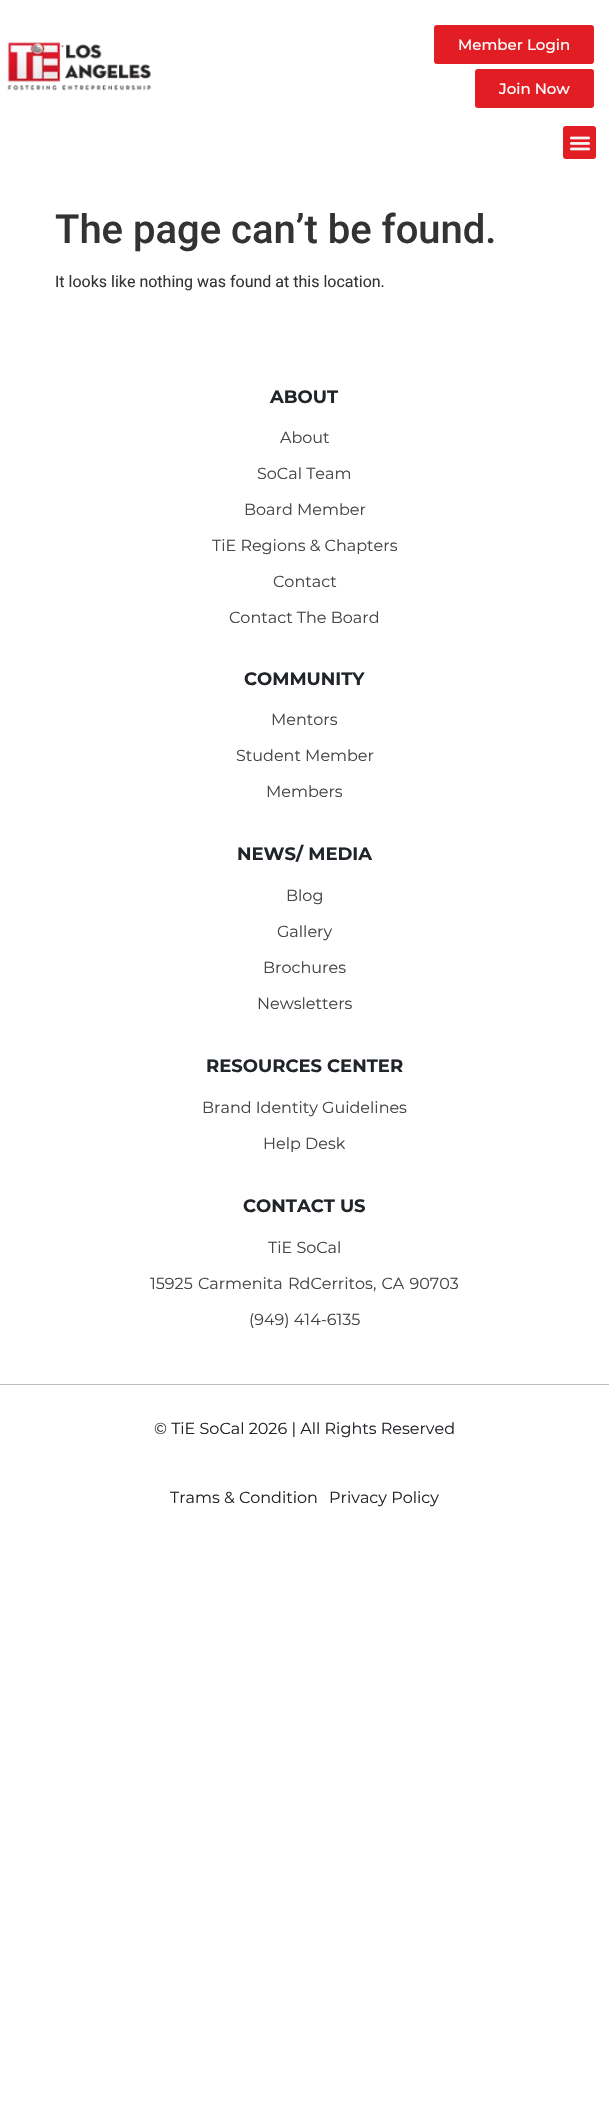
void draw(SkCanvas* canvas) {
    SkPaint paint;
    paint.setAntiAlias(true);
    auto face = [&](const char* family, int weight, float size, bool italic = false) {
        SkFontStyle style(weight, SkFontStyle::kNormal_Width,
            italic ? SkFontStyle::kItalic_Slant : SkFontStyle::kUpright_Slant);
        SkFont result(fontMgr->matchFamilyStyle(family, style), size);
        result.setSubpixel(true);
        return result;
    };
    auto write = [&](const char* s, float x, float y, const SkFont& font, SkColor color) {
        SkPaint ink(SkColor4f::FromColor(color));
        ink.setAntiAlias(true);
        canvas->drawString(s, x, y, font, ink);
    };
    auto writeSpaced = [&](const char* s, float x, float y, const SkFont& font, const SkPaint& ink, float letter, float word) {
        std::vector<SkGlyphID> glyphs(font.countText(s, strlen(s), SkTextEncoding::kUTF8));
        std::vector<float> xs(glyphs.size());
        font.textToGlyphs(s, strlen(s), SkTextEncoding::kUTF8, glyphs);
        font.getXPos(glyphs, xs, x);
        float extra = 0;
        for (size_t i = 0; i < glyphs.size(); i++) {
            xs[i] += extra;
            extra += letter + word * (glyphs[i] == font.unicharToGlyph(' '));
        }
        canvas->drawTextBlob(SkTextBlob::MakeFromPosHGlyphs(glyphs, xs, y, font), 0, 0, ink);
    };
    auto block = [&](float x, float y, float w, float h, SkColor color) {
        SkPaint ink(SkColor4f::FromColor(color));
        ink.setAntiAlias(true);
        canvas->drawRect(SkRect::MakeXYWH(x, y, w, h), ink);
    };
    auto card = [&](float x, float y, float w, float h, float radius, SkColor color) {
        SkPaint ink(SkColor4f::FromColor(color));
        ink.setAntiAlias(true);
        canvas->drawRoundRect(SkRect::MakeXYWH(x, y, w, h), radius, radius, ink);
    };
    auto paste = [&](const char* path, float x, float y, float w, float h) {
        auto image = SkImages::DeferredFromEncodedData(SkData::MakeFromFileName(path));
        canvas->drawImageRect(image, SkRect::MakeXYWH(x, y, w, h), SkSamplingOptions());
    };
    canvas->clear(SK_ColorWHITE);
    paste("pic1.png", 7, 42, 144, 49);
    card(434, 25, 160, 39, 3, SkColorSetRGB(226, 30, 36));
    auto kFont1 = face("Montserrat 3", 100, 15);
    write("Member Login", 458, 50, kFont1, SK_ColorWHITE);
    card(475, 69, 119, 39, 3, SkColorSetRGB(226, 30, 36));
    write("Join Now", 499, 94, kFont1, SK_ColorWHITE);
    card(563, 126, 33, 33, 3, SkColorSetRGB(226, 30, 36));
    paste("pic2.png", 569, 136, 22, 15);
    auto kFont2 = face("Roboto", 500, 40);
    write("The page can’t be found.", 55, 243, kFont2, SkColorSetRGB(51, 51, 51));
    auto kFont3 = face("Roboto", 400, 16);
    write("It looks like nothing was found at this location.", 55, 287, kFont3, SkColorSetRGB(51, 51, 51));
    auto kFont4 = face("Montserrat", 100, 18);
    write("ABOUT", 270, 403, kFont4, SkColorSetRGB(33, 37, 41));
    auto kFont5 = face("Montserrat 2", 100, 16);
    write("About", 280, 443, kFont5, SkColorSetRGB(69, 69, 69));
    write("SoCal Team", 257, 479, kFont5, SkColorSetRGB(69, 69, 69));
    write("Board Member", 244, 515, kFont5, SkColorSetRGB(69, 69, 69));
    write("TiE Regions & Chapters", 212, 551, kFont5, SkColorSetRGB(69, 69, 69));
    write("Contact", 273, 587, kFont5, SkColorSetRGB(69, 69, 69));
    write("Contact The Board", 229, 623, kFont5, SkColorSetRGB(69, 69, 69));
    write("COMMUNITY", 244, 685, kFont4, SkColorSetRGB(33, 37, 41));
    write("Mentors", 271, 725, kFont5, SkColorSetRGB(69, 69, 69));
    write("Student Member", 236, 761, kFont5, SkColorSetRGB(69, 69, 69));
    write("Members", 266, 797, kFont5, SkColorSetRGB(69, 69, 69));
    write("NEWS/ MEDIA", 237, 860, kFont4, SkColorSetRGB(33, 37, 41));
    write("Blog", 286, 901, kFont5, SkColorSetRGB(69, 69, 69));
    write("Gallery", 277, 937, kFont5, SkColorSetRGB(69, 69, 69));
    write("Brochures", 263, 973, kFont5, SkColorSetRGB(69, 69, 69));
    write("Newsletters", 257, 1009, kFont5, SkColorSetRGB(69, 69, 69));
    write("RESOURCES CENTER", 206, 1072, kFont4, SkColorSetRGB(33, 37, 41));
    write("Brand Identity Guidelines", 202, 1113, kFont5, SkColorSetRGB(69, 69, 69));
    write("Help Desk", 263, 1149, kFont5, SkColorSetRGB(69, 69, 69));
    write("CONTACT US", 243, 1212, kFont4, SkColorSetRGB(33, 37, 41));
    write("TiE SoCal", 268, 1253, kFont5, SkColorSetRGB(69, 69, 69));
    paint.setColor(SkColorSetRGB(69, 69, 69));
    writeSpaced("15925 Carmenita RdCerritos, CA 90703", 150, 1289, kFont5, paint, 0, 1);
    write("(949) 414-6135", 249, 1325, kFont5, SkColorSetRGB(69, 69, 69));
    block(0, 1384, 609, 1, SkColorSetRGB(188, 188, 188));
    write("© TiE SoCal 2026 | All Rights Reserved", 154, 1434, kFont5, SkColorSetRGB(33, 37, 41));
    write("Trams & Condition", 170, 1503, kFont5, SkColorSetRGB(33, 37, 41));
    write("Privacy Policy", 329, 1503, kFont5, SkColorSetRGB(33, 37, 41));
}
